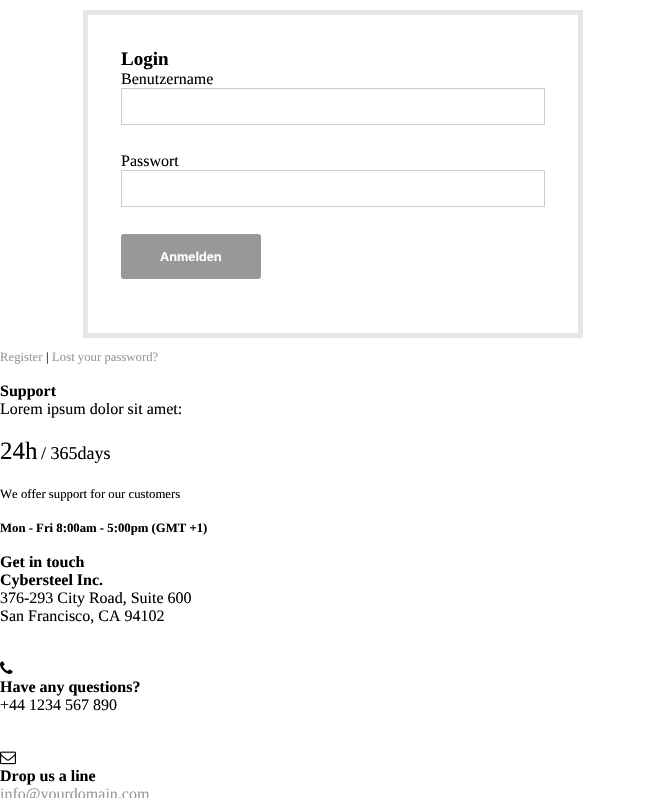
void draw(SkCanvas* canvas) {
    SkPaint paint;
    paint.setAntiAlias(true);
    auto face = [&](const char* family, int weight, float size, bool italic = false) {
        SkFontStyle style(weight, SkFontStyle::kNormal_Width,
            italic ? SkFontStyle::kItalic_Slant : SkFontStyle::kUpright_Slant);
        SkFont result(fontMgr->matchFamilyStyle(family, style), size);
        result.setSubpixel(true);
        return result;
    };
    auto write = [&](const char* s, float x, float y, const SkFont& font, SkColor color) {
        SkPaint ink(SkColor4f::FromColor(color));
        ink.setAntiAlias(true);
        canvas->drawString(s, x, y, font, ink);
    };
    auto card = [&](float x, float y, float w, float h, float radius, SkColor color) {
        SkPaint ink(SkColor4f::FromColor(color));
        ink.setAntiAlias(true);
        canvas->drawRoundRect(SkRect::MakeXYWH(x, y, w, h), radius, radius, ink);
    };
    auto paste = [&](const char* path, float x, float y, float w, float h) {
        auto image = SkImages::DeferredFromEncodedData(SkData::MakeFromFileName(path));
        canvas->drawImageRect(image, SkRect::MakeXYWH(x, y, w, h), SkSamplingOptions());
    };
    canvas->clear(SK_ColorWHITE);
    paint.setStyle(SkPaint::kStroke_Style);
    paint.setStrokeWidth(5);
    paint.setColor(SkColorSetRGB(230, 230, 230));
    canvas->drawRect(SkRect::MakeXYWH(85.5f, 12.5f, 495, 323), paint);
    auto kFont1 = face("Liberation Serif", 700, 19);
    write("Login", 121, 65, kFont1, SK_ColorBLACK);
    auto kFont2 = face("Liberation Serif", 400, 16);
    write("Benutzername", 121, 84, kFont2, SK_ColorBLACK);
    paint.setStrokeWidth(1);
    paint.setColor(SkColorSetRGB(204, 204, 204));
    canvas->drawRect(SkRect::MakeXYWH(121.5f, 88.5f, 423, 36), paint);
    write("Passwort", 121, 166, kFont2, SK_ColorBLACK);
    canvas->drawRect(SkRect::MakeXYWH(121.5f, 170.5f, 423, 36), paint);
    card(121, 234, 140, 45, 3, SkColorSetRGB(152, 152, 152));
    auto kFont3 = face("Liberation Sans", 700, 12.75f);
    write("Anmelden", 160, 261, kFont3, SK_ColorWHITE);
    auto kFont4 = face("Liberation Serif", 400, 12.75f);
    write("Register", 0, 361, kFont4, SkColorSetRGB(152, 152, 152));
    write("|", 46, 361, kFont4, SK_ColorBLACK);
    write("Lost your password?", 52, 361, kFont4, SkColorSetRGB(152, 152, 152));
    auto kFont5 = face("Liberation Serif", 700, 16);
    write("Support", 0, 396, kFont5, SK_ColorBLACK);
    write("Lorem ipsum dolor sit amet:", 0, 414, kFont2, SK_ColorBLACK);
    auto kFont6 = face("Liberation Serif", 400, 25);
    write("24h", 0, 459, kFont6, SK_ColorBLACK);
    auto kFont7 = face("Liberation Serif", 400, 18);
    write("/ 365days", 41, 459, kFont7, SK_ColorBLACK);
    write("We offer support for our customers", 0, 498, kFont4, SK_ColorBLACK);
    auto kFont8 = face("Liberation Serif", 700, 12.75f);
    write("Mon - Fri 8:00am - 5:00pm (GMT +1)", 0, 532, kFont8, SK_ColorBLACK);
    write("Get in touch", 0, 567, kFont5, SK_ColorBLACK);
    write("Cybersteel Inc.", 0, 585, kFont5, SK_ColorBLACK);
    write("376-293 City Road, Suite 600", 0, 603, kFont2, SK_ColorBLACK);
    write("San Francisco, CA 94102", 0, 621, kFont2, SK_ColorBLACK);
    paste("pic1.png", 0, 661, 13, 13);
    write("Have any questions?", 0, 692, kFont5, SK_ColorBLACK);
    write("+44 1234 567 890", 0, 710, kFont2, SK_ColorBLACK);
    paste("pic2.png", 0, 751, 16, 14);
    write("Drop us a line", 0, 781, kFont5, SK_ColorBLACK);
    write("info@yourdomain.com", 0, 799, kFont2, SkColorSetRGB(152, 152, 152));
}
